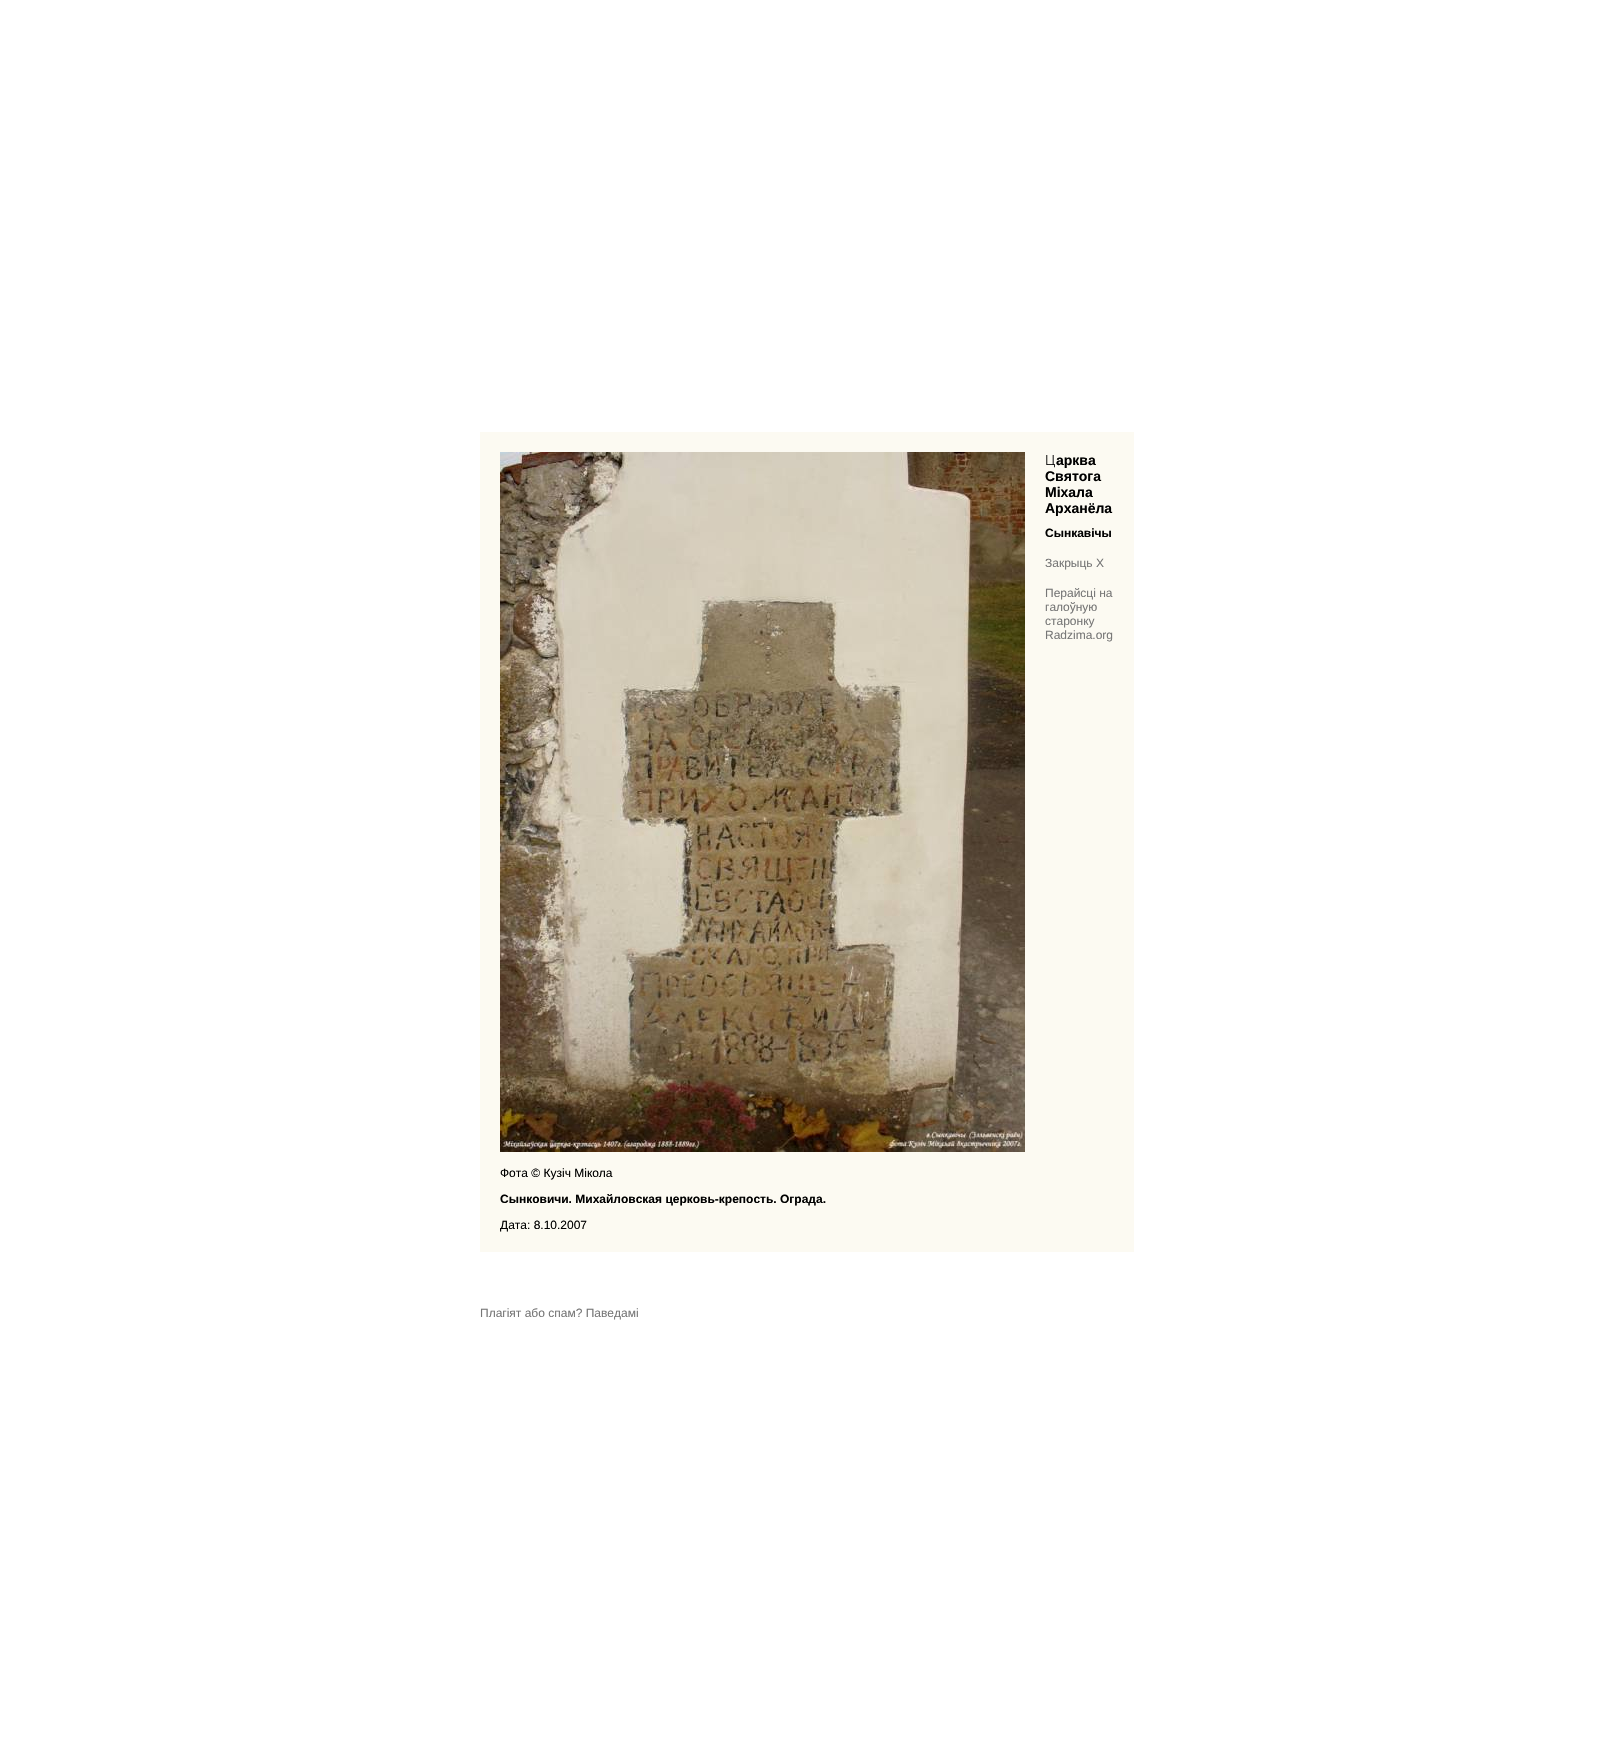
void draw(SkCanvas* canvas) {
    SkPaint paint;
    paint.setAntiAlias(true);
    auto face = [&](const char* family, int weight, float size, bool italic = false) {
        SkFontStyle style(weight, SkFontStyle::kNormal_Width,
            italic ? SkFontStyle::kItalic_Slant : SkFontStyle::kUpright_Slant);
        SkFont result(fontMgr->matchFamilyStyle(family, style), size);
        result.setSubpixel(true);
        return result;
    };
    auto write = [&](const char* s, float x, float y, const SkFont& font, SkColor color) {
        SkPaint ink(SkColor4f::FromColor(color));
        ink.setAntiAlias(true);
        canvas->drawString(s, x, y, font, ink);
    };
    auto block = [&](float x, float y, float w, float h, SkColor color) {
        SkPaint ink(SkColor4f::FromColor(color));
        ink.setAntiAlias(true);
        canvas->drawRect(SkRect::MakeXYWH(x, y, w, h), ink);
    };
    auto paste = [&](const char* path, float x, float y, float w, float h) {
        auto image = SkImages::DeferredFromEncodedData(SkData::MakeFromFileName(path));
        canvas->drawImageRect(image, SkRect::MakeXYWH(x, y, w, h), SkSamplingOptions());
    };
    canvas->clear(SK_ColorWHITE);
    block(480, 432, 654, 820, SkColorSetRGB(252, 250, 242));
    auto kFont1 = face("Noto Sans", 300, 14);
    write("Ц", 1045, 465, kFont1, SK_ColorBLACK);
    auto kFont2 = face("Liberation Sans", 700, 14);
    write("арква", 1056, 465, kFont2, SK_ColorBLACK);
    write("Святога", 1045, 481, kFont2, SK_ColorBLACK);
    write("Міхала", 1045, 497, kFont2, SK_ColorBLACK);
    write("Арханёла", 1045, 513, kFont2, SK_ColorBLACK);
    auto kFont3 = face("Liberation Sans", 700, 12);
    write("Сынкавічы", 1045, 537, kFont3, SK_ColorBLACK);
    auto kFont4 = face("Liberation Sans", 400, 12);
    write("Закрыць X", 1045, 567, kFont4, SkColorSetRGB(119, 119, 119));
    write("Перайсці на", 1045, 597, kFont4, SkColorSetRGB(119, 119, 119));
    write("галоўную", 1045, 611, kFont4, SkColorSetRGB(119, 119, 119));
    write("старонку", 1045, 625, kFont4, SkColorSetRGB(119, 119, 119));
    write("Radzima.org", 1045, 639, kFont4, SkColorSetRGB(119, 119, 119));
    paste("pic1.png", 500, 452, 525, 700);
    write("Фота © Кузіч Мікола", 500, 1177, kFont4, SK_ColorBLACK);
    write("Сынковичи. Михайловская церковь-крепость. Ограда.", 500, 1203, kFont3, SK_ColorBLACK);
    write("Дата: 8.10.2007", 500, 1229, kFont4, SK_ColorBLACK);
    write("Плагіят або спам? Паведамі", 480, 1317, kFont4, SkColorSetRGB(119, 119, 119));
}
